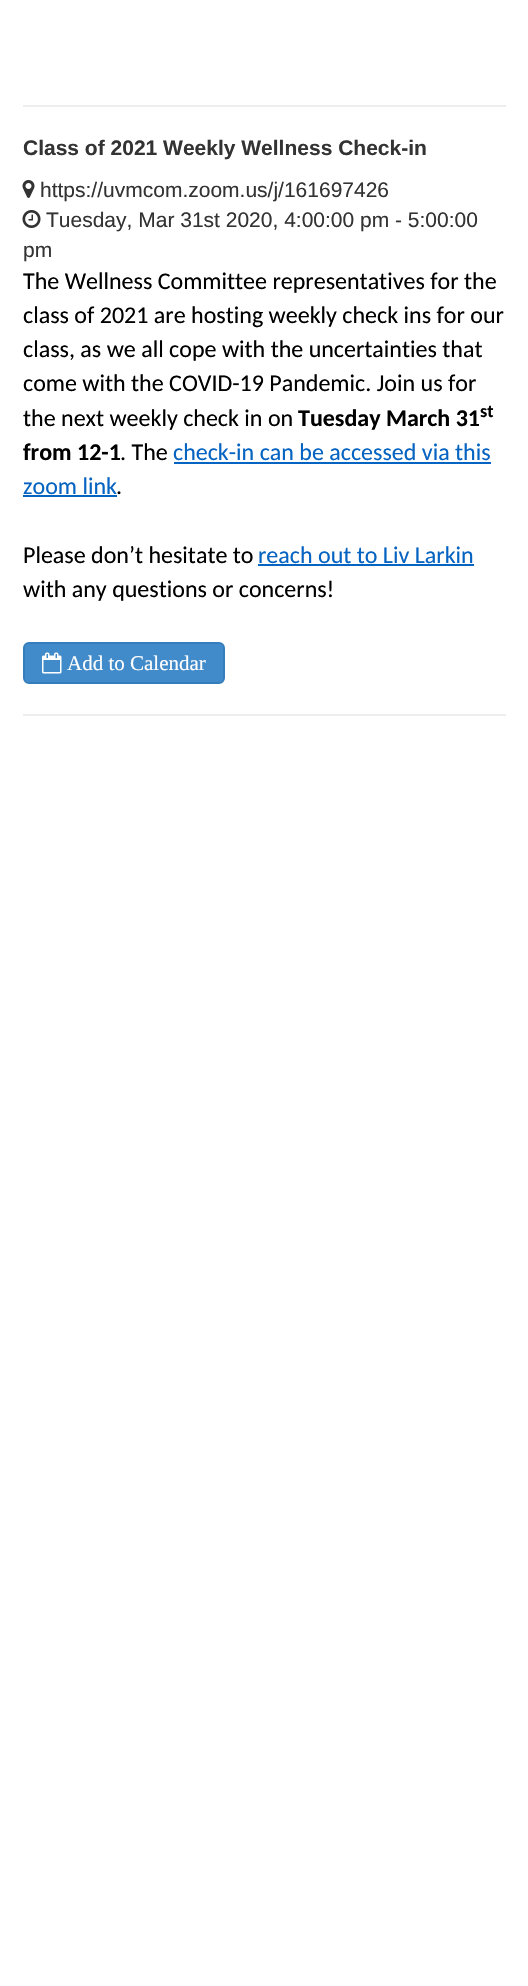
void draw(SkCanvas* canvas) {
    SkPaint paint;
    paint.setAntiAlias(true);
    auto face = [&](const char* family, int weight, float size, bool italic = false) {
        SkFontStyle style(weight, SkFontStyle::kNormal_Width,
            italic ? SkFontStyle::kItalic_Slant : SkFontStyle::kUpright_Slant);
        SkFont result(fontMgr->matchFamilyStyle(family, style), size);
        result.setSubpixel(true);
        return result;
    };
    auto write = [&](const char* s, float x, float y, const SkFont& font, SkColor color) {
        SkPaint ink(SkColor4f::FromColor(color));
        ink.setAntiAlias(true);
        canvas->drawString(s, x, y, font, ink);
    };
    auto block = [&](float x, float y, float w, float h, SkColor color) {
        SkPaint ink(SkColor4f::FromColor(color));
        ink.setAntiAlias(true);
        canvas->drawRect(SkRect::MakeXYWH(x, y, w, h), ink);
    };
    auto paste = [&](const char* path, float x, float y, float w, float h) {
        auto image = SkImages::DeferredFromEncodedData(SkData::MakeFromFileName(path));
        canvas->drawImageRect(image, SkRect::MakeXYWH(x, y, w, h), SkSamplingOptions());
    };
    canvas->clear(SK_ColorWHITE);
    block(23, 105, 483, 2, SkColorSetRGB(238, 238, 238));
    auto kFont1 = face("Liberation Sans", 700, 21);
    write("Class of 2021 Weekly Wellness Check-in", 23, 155, kFont1, SkColorSetRGB(51, 51, 51));
    paste("pic1.png", 22, 180, 13, 18);
    auto kFont2 = face("Liberation Sans", 400, 21);
    write("https://uvmcom.zoom.us/j/161697426", 40, 197, kFont2, SkColorSetRGB(51, 51, 51));
    paste("pic2.png", 22, 210, 19, 18);
    write("Tuesday, Mar 31st 2020, 4:00:00 pm - 5:00:00", 46, 227, kFont2, SkColorSetRGB(51, 51, 51));
    write("pm", 23, 257, kFont2, SkColorSetRGB(51, 51, 51));
    auto kFont3 = face("Carlito", 400, 24);
    write("The Wellness Committee representatives for the", 23, 289, kFont3, SK_ColorBLACK);
    write("class of 2021 are hosting weekly check ins for our", 23, 323, kFont3, SK_ColorBLACK);
    write("class, as we all cope with the uncertainties that", 23, 357, kFont3, SK_ColorBLACK);
    write("come with the COVID-19 Pandemic. Join us for", 23, 391, kFont3, SK_ColorBLACK);
    write("the next weekly check in on", 23, 426, kFont3, SK_ColorBLACK);
    auto kFont4 = face("Carlito", 700, 24);
    write("Tuesday March 31", 298, 426, kFont4, SK_ColorBLACK);
    auto kFont5 = face("Carlito", 700, 18);
    write("st", 480, 417, kFont5, SK_ColorBLACK);
    write("from 12-1", 23, 460, kFont4, SK_ColorBLACK);
    write(". The", 120, 460, kFont3, SK_ColorBLACK);
    write("check-in can be accessed via this", 173, 460, kFont3, SkColorSetRGB(5, 99, 193));
    block(174, 462, 317, 2, SkColorSetRGB(5, 99, 193));
    write("zoom link", 23, 494, kFont3, SkColorSetRGB(5, 99, 193));
    write(".", 116, 494, kFont3, SK_ColorBLACK);
    block(23, 495, 94, 2, SkColorSetRGB(5, 99, 193));
    write("Please don’t hesitate to", 23, 563, kFont3, SK_ColorBLACK);
    write("reach out to Liv Larkin", 258, 563, kFont3, SkColorSetRGB(5, 99, 193));
    block(258, 564, 216, 2, SkColorSetRGB(5, 99, 193));
    write("with any questions or concerns!", 23, 597, kFont3, SK_ColorBLACK);
    paint.setColor(SkColorSetRGB(66, 139, 202));
    canvas->drawRoundRect(SkRect::MakeXYWH(24, 643, 200, 40), 5, 5, paint);
    paint.setStyle(SkPaint::kStroke_Style);
    paint.setStrokeWidth(2);
    paint.setColor(SkColorSetRGB(53, 126, 189));
    canvas->drawRoundRect(SkRect::MakeXYWH(24, 643, 200, 40), 5, 5, paint);
    paste("pic3.png", 42, 652, 20, 22);
    auto kFont6 = face("Liberation Serif", 400, 21);
    write("Add to Calendar", 67, 670, kFont6, SK_ColorWHITE);
    block(23, 714, 483, 2, SkColorSetRGB(238, 238, 238));
}
